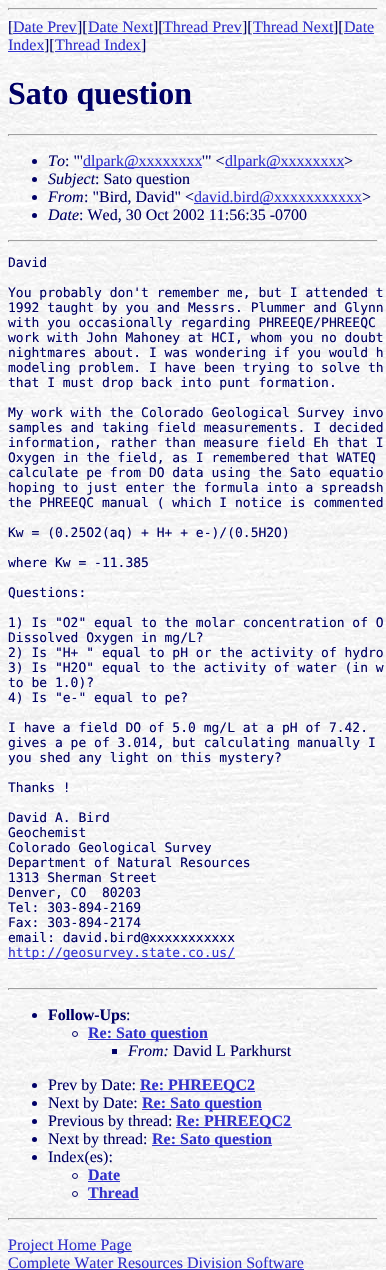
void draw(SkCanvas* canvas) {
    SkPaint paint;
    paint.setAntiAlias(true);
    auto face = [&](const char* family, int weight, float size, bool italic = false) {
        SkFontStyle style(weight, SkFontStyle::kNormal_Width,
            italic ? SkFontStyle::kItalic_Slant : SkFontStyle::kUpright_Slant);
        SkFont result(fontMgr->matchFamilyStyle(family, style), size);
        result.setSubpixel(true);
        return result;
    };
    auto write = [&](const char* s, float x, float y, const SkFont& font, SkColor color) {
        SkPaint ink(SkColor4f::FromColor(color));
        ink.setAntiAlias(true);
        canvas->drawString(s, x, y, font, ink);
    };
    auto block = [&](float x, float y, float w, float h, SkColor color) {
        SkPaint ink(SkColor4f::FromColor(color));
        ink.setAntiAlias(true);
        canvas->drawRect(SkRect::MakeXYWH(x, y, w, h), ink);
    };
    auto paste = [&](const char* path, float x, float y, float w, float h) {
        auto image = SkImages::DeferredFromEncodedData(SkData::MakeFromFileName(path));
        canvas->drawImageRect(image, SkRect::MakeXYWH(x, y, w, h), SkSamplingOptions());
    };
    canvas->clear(SK_ColorWHITE);
    paste("pic1.png", 0, 0, 386, 1270);
    block(8, 8, 370, 1, SkColorSetRGB(159, 159, 159));
    block(377, 8, 1, 2, SkColorSetRGB(238, 238, 238));
    block(8, 9, 370, 1, SkColorSetRGB(238, 238, 238));
    block(8, 8, 1, 2, SkColorSetRGB(159, 159, 159));
    auto kFont1 = face("Liberation Serif", 400, 16);
    write("[", 8, 32, kFont1, SkColorSetRGB(0, 0, 102));
    write("Date Prev", 13, 32, kFont1, SkColorSetRGB(51, 51, 204));
    block(13, 33, 64, 1, SkColorSetRGB(51, 51, 204));
    write("][", 77, 32, kFont1, SkColorSetRGB(0, 0, 102));
    write("Date Next", 88, 32, kFont1, SkColorSetRGB(51, 51, 204));
    block(88, 33, 65, 1, SkColorSetRGB(51, 51, 204));
    write("][", 153, 32, kFont1, SkColorSetRGB(0, 0, 102));
    write("Thread Prev", 163, 32, kFont1, SkColorSetRGB(51, 51, 204));
    block(163, 33, 79, 1, SkColorSetRGB(51, 51, 204));
    write("][", 242, 32, kFont1, SkColorSetRGB(0, 0, 102));
    write("Thread Next", 253, 32, kFont1, SkColorSetRGB(51, 51, 204));
    block(253, 33, 80, 1, SkColorSetRGB(51, 51, 204));
    write("][", 333, 32, kFont1, SkColorSetRGB(0, 0, 102));
    write("Date", 344, 32, kFont1, SkColorSetRGB(51, 51, 204));
    block(344, 33, 30, 1, SkColorSetRGB(51, 51, 204));
    write("Index", 8, 50, kFont1, SkColorSetRGB(51, 51, 204));
    block(8, 51, 36, 1, SkColorSetRGB(51, 51, 204));
    write("][", 44, 50, kFont1, SkColorSetRGB(0, 0, 102));
    write("Thread Index", 55, 50, kFont1, SkColorSetRGB(51, 51, 204));
    block(55, 51, 86, 1, SkColorSetRGB(51, 51, 204));
    write("]", 141, 50, kFont1, SkColorSetRGB(0, 0, 102));
    auto kFont2 = face("Liberation Serif", 700, 32);
    write("Sato question", 8, 104, kFont2, SkColorSetRGB(0, 0, 102));
    block(8, 134, 370, 1, SkColorSetRGB(159, 159, 159));
    block(377, 134, 1, 2, SkColorSetRGB(238, 238, 238));
    block(8, 135, 370, 1, SkColorSetRGB(238, 238, 238));
    block(8, 134, 1, 2, SkColorSetRGB(159, 159, 159));
    paint.setColor(SkColorSetRGB(0, 0, 102));
    canvas->drawCircle(34.5f, 161.5f, 2.5f, paint);
    auto kFont3 = face("Liberation Serif", 400, 16, true);
    write("To", 48, 166, kFont3, SkColorSetRGB(0, 0, 102));
    write(": \"'", 65, 166, kFont1, SkColorSetRGB(0, 0, 102));
    block(83, 167, 119, 1, SkColorSetRGB(51, 51, 204));
    write("dlpark@xxxxxxxx", 83, 166, kFont1, SkColorSetRGB(51, 51, 204));
    write("'\" <", 202, 166, kFont1, SkColorSetRGB(0, 0, 102));
    block(225, 167, 119, 1, SkColorSetRGB(51, 51, 204));
    write("dlpark@xxxxxxxx", 225, 166, kFont1, SkColorSetRGB(51, 51, 204));
    write(">", 344, 166, kFont1, SkColorSetRGB(0, 0, 102));
    canvas->drawCircle(34.5f, 179.5f, 2.5f, paint);
    write("Subject", 48, 184, kFont3, SkColorSetRGB(0, 0, 102));
    write(": Sato question", 95, 184, kFont1, SkColorSetRGB(0, 0, 102));
    canvas->drawCircle(34.5f, 197.5f, 2.5f, paint);
    write("From", 48, 202, kFont3, SkColorSetRGB(0, 0, 102));
    write(": \"Bird, David\" <", 84, 202, kFont1, SkColorSetRGB(0, 0, 102));
    block(194, 203, 168, 1, SkColorSetRGB(51, 51, 204));
    write("david.bird@xxxxxxxxxxx", 194, 202, kFont1, SkColorSetRGB(51, 51, 204));
    write(">", 362, 202, kFont1, SkColorSetRGB(0, 0, 102));
    canvas->drawCircle(34.5f, 215.5f, 2.5f, paint);
    write("Date", 48, 220, kFont3, SkColorSetRGB(0, 0, 102));
    write(": Wed, 30 Oct 2002 11:56:35 -0700", 79, 220, kFont1, SkColorSetRGB(0, 0, 102));
    block(8, 240, 370, 1, SkColorSetRGB(159, 159, 159));
    block(377, 240, 1, 2, SkColorSetRGB(238, 238, 238));
    block(8, 241, 370, 1, SkColorSetRGB(238, 238, 238));
    block(8, 240, 1, 2, SkColorSetRGB(159, 159, 159));
    auto kFont4 = face("DejaVu Sans Mono", 400, 13);
    write("David", 8, 267, kFont4, SkColorSetRGB(0, 0, 102));
    write("You probably don't remember me, but I attended t", 8, 297, kFont4, SkColorSetRGB(0, 0, 102));
    write("1992 taught by you and Messrs. Plummer and Glynn", 8, 312, kFont4, SkColorSetRGB(0, 0, 102));
    write("with you occasionally regarding PHREEQE/PHREEQC", 8, 327, kFont4, SkColorSetRGB(0, 0, 102));
    write("work with John Mahoney at HCI, whom you no doubt", 8, 342, kFont4, SkColorSetRGB(0, 0, 102));
    write("nightmares about. I was wondering if you would h", 8, 357, kFont4, SkColorSetRGB(0, 0, 102));
    write("modeling problem. I have been trying to solve th", 8, 372, kFont4, SkColorSetRGB(0, 0, 102));
    write("that I must drop back into punt formation.", 8, 387, kFont4, SkColorSetRGB(0, 0, 102));
    write("My work with the Colorado Geological Survey invo", 8, 417, kFont4, SkColorSetRGB(0, 0, 102));
    write("samples and taking field measurements. I decided", 8, 432, kFont4, SkColorSetRGB(0, 0, 102));
    write("information, rather than measure field Eh that I", 8, 447, kFont4, SkColorSetRGB(0, 0, 102));
    write("Oxygen in the field, as I remembered that WATEQ", 8, 462, kFont4, SkColorSetRGB(0, 0, 102));
    write("calculate pe from DO data using the Sato equatio", 8, 477, kFont4, SkColorSetRGB(0, 0, 102));
    write("hoping to just enter the formula into a spreadsh", 8, 492, kFont4, SkColorSetRGB(0, 0, 102));
    write("the PHREEQC manual ( which I notice is commented", 8, 507, kFont4, SkColorSetRGB(0, 0, 102));
    write("Kw = (0.25O2(aq) + H+ + e-)/(0.5H2O)", 8, 537, kFont4, SkColorSetRGB(0, 0, 102));
    write("where Kw = -11.385", 8, 567, kFont4, SkColorSetRGB(0, 0, 102));
    write("Questions:", 8, 597, kFont4, SkColorSetRGB(0, 0, 102));
    write("1) Is \"O2\" equal to the molar concentration of O", 8, 627, kFont4, SkColorSetRGB(0, 0, 102));
    write("Dissolved Oxygen in mg/L?", 8, 642, kFont4, SkColorSetRGB(0, 0, 102));
    write("2) Is \"H+ \" equal to pH or the activity of hydro", 8, 657, kFont4, SkColorSetRGB(0, 0, 102));
    write("3) Is \"H2O\" equal to the activity of water (in w", 8, 672, kFont4, SkColorSetRGB(0, 0, 102));
    write("to be 1.0)?", 8, 687, kFont4, SkColorSetRGB(0, 0, 102));
    write("4) Is \"e-\" equal to pe?", 8, 702, kFont4, SkColorSetRGB(0, 0, 102));
    write("I have a field DO of 5.0 mg/L at a pH of 7.42.", 8, 732, kFont4, SkColorSetRGB(0, 0, 102));
    write("gives a pe of 3.014, but calculating manually I", 8, 747, kFont4, SkColorSetRGB(0, 0, 102));
    write("you shed any light on this mystery?", 8, 762, kFont4, SkColorSetRGB(0, 0, 102));
    write("Thanks !", 8, 792, kFont4, SkColorSetRGB(0, 0, 102));
    write("David A. Bird", 8, 822, kFont4, SkColorSetRGB(0, 0, 102));
    write("Geochemist", 8, 837, kFont4, SkColorSetRGB(0, 0, 102));
    write("Colorado Geological Survey", 8, 852, kFont4, SkColorSetRGB(0, 0, 102));
    write("Department of Natural Resources", 8, 867, kFont4, SkColorSetRGB(0, 0, 102));
    write("1313 Sherman Street", 8, 882, kFont4, SkColorSetRGB(0, 0, 102));
    write("Denver, CO  80203", 8, 897, kFont4, SkColorSetRGB(0, 0, 102));
    write("Tel: 303-894-2169", 8, 912, kFont4, SkColorSetRGB(0, 0, 102));
    write("Fax: 303-894-2174", 8, 927, kFont4, SkColorSetRGB(0, 0, 102));
    write("email: david.bird@xxxxxxxxxxx", 8, 942, kFont4, SkColorSetRGB(0, 0, 102));
    block(8, 958, 227, 1, SkColorSetRGB(51, 51, 204));
    write("http://geosurvey.state.co.us/", 8, 957, kFont4, SkColorSetRGB(51, 51, 204));
    block(8, 988, 370, 1, SkColorSetRGB(159, 159, 159));
    block(377, 988, 1, 2, SkColorSetRGB(238, 238, 238));
    block(8, 989, 370, 1, SkColorSetRGB(238, 238, 238));
    block(8, 988, 1, 2, SkColorSetRGB(159, 159, 159));
    canvas->drawCircle(34.5f, 1015.5f, 2.5f, paint);
    auto kFont5 = face("Liberation Serif", 700, 16);
    write("Follow-Ups", 48, 1020, kFont5, SkColorSetRGB(0, 0, 102));
    write(":", 126, 1020, kFont1, SkColorSetRGB(0, 0, 102));
    paint.setStyle(SkPaint::kStroke_Style);
    paint.setStrokeWidth(1);
    canvas->drawCircle(75, 1034, 2.5f, paint);
    block(88, 1039, 120, 1, SkColorSetRGB(51, 51, 204));
    write("Re: Sato question", 88, 1038, kFont5, SkColorSetRGB(51, 51, 204));
    block(112, 1049, 5, 5, SkColorSetRGB(0, 0, 102));
    write("From:", 128, 1056, kFont3, SkColorSetRGB(0, 0, 102));
    write("David L Parkhurst", 173, 1056, kFont1, SkColorSetRGB(0, 0, 102));
    paint.setStyle(SkPaint::kFill_Style);
    canvas->drawCircle(34.5f, 1085.5f, 2.5f, paint);
    write("Prev by Date:", 48, 1090, kFont1, SkColorSetRGB(0, 0, 102));
    block(140, 1091, 115, 1, SkColorSetRGB(51, 51, 204));
    write("Re: PHREEQC2", 140, 1090, kFont5, SkColorSetRGB(51, 51, 204));
    canvas->drawCircle(34.5f, 1103.5f, 2.5f, paint);
    write("Next by Date:", 48, 1108, kFont1, SkColorSetRGB(0, 0, 102));
    block(142, 1109, 120, 1, SkColorSetRGB(51, 51, 204));
    write("Re: Sato question", 142, 1108, kFont5, SkColorSetRGB(51, 51, 204));
    canvas->drawCircle(34.5f, 1121.5f, 2.5f, paint);
    write("Previous by thread:", 48, 1126, kFont1, SkColorSetRGB(0, 0, 102));
    block(176, 1127, 116, 1, SkColorSetRGB(51, 51, 204));
    write("Re: PHREEQC2", 176, 1126, kFont5, SkColorSetRGB(51, 51, 204));
    canvas->drawCircle(34.5f, 1139.5f, 2.5f, paint);
    write("Next by thread:", 48, 1144, kFont1, SkColorSetRGB(0, 0, 102));
    block(152, 1145, 120, 1, SkColorSetRGB(51, 51, 204));
    write("Re: Sato question", 152, 1144, kFont5, SkColorSetRGB(51, 51, 204));
    canvas->drawCircle(34.5f, 1157.5f, 2.5f, paint);
    write("Index(es):", 48, 1162, kFont1, SkColorSetRGB(0, 0, 102));
    paint.setStyle(SkPaint::kStroke_Style);
    canvas->drawCircle(75, 1176, 2.5f, paint);
    write("Date", 88, 1180, kFont5, SkColorSetRGB(51, 51, 204));
    block(88, 1181, 32, 1, SkColorSetRGB(51, 51, 204));
    canvas->drawCircle(75, 1194, 2.5f, paint);
    write("Thread", 88, 1198, kFont5, SkColorSetRGB(51, 51, 204));
    block(88, 1199, 51, 1, SkColorSetRGB(51, 51, 204));
    block(8, 1218, 370, 1, SkColorSetRGB(159, 159, 159));
    block(377, 1218, 1, 2, SkColorSetRGB(238, 238, 238));
    block(8, 1219, 370, 1, SkColorSetRGB(238, 238, 238));
    block(8, 1218, 1, 2, SkColorSetRGB(159, 159, 159));
    block(8, 1251, 124, 1, SkColorSetRGB(51, 51, 204));
    write("Project Home Page", 8, 1250, kFont1, SkColorSetRGB(51, 51, 204));
    block(8, 1269, 296, 1, SkColorSetRGB(51, 51, 204));
    write("Complete Water Resources Division Software", 8, 1268, kFont1, SkColorSetRGB(51, 51, 204));
}
